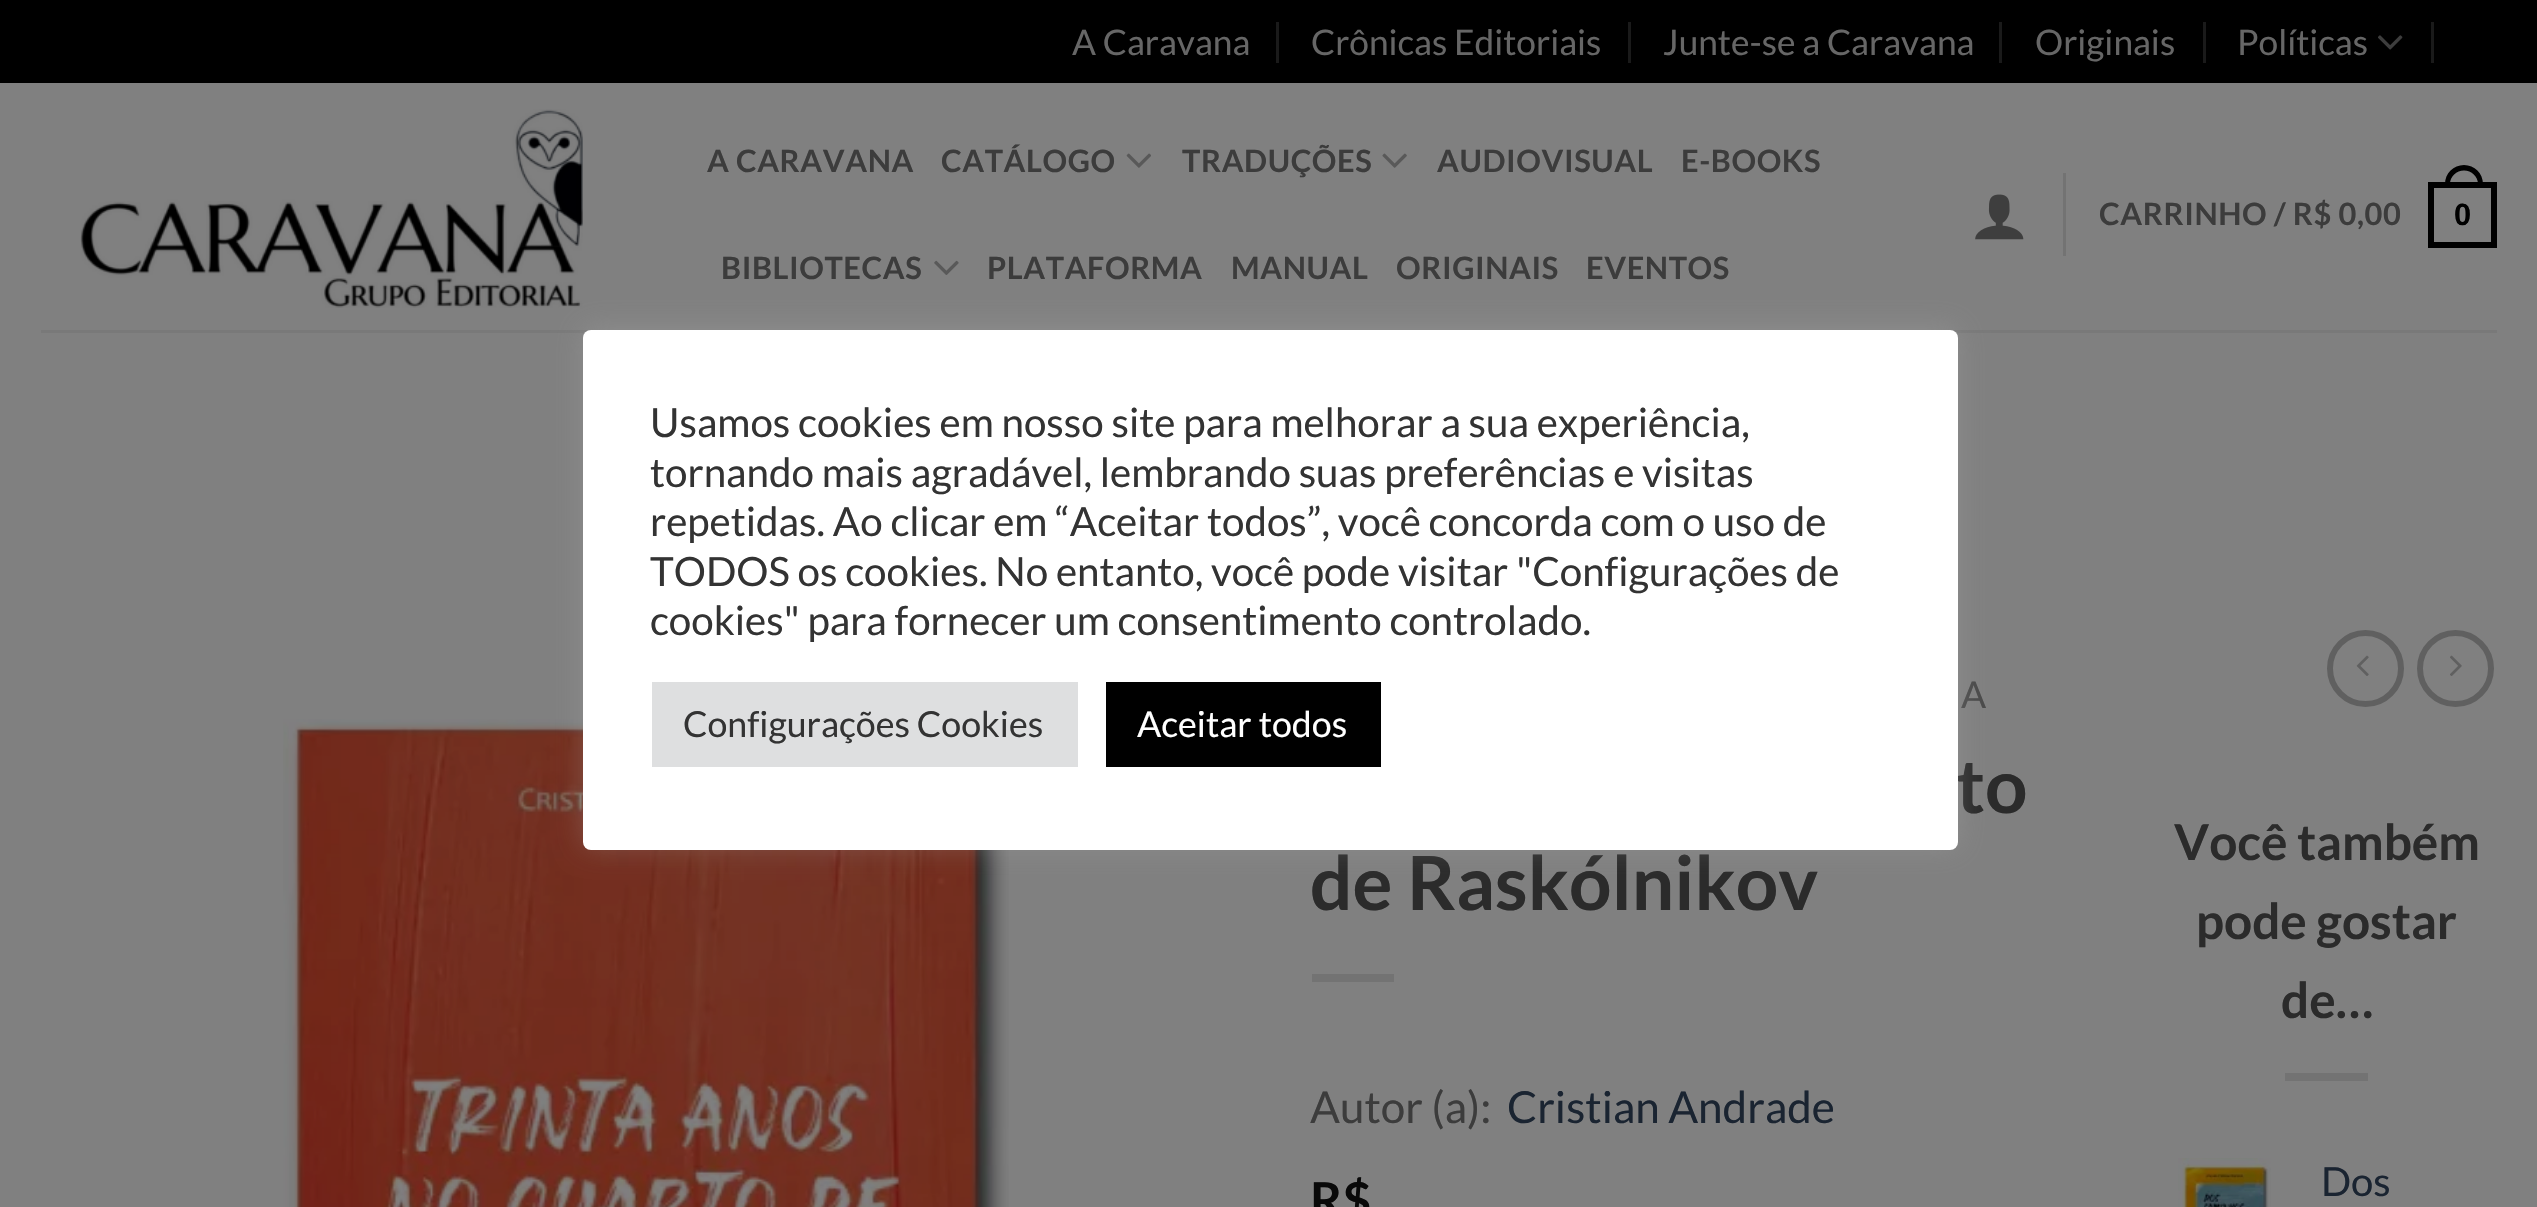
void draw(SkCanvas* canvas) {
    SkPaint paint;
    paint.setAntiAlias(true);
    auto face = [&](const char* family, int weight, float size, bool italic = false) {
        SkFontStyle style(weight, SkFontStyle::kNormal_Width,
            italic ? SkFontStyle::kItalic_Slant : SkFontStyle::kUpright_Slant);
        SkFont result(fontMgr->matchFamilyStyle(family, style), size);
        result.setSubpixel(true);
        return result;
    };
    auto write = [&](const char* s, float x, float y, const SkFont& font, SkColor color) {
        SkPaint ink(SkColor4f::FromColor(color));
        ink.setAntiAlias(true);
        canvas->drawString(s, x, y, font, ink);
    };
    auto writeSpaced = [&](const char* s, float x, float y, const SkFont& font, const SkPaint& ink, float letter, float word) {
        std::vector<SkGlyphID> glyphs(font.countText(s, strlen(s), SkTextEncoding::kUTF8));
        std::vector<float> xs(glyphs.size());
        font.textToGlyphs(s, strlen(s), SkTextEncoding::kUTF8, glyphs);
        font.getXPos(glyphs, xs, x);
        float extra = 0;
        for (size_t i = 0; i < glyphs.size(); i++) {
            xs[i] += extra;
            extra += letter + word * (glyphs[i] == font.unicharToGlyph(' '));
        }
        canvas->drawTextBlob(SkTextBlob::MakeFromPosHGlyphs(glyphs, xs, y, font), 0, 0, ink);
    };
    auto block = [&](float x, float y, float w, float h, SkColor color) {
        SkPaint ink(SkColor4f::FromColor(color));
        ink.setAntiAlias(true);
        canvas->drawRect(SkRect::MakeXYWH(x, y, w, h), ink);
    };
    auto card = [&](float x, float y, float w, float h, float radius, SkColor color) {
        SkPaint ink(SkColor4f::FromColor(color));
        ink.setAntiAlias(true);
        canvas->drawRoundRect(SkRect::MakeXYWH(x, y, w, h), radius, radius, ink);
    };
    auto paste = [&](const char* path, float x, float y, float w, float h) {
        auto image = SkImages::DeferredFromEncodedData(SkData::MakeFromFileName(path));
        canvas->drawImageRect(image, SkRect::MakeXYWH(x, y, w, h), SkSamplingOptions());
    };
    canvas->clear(SkColorSetRGB(128, 128, 128));
    block(0, 0, 2537, 83, SK_ColorBLACK);
    auto kFont1 = face("Lato", 400, 35.25f);
    write("A Caravana", 1072, 55, kFont1, SkColorSetRGB(102, 102, 102));
    block(1276, 22, 3, 41, SkColorSetRGB(26, 26, 26));
    write("Crônicas Editoriais", 1311, 55, kFont1, SkColorSetRGB(102, 102, 102));
    block(1628, 22, 3, 41, SkColorSetRGB(26, 26, 26));
    write("Junte-se a Caravana", 1663, 55, kFont1, SkColorSetRGB(102, 102, 102));
    block(1999, 22, 3, 41, SkColorSetRGB(26, 26, 26));
    write("Originais", 2035, 55, kFont1, SkColorSetRGB(102, 102, 102));
    block(2203, 22, 3, 41, SkColorSetRGB(26, 26, 26));
    write("Políticas", 2237, 55, kFont1, SkColorSetRGB(102, 102, 102));
    paste("pic1.png", 2378, 35, 25, 15);
    block(2431, 22, 3, 41, SkColorSetRGB(26, 26, 26));
    paste("pic2.png", 80, 109, 503, 199);
    auto kFont2 = face("Lato", 700, 30.75f);
    paint.setColor(SkColorSetRGB(60, 60, 60));
    writeSpaced("A CARAVANA", 707, 172, kFont2, paint, 0.6f, 0);
    writeSpaced("CATÁLOGO", 941, 172, kFont2, paint, 0.6f, 0);
    paste("pic3.png", 1126, 153, 25, 15);
    writeSpaced("TRADUÇÕES", 1182, 172, kFont2, paint, 0.6f, 0);
    paste("pic4.png", 1382, 153, 25, 15);
    writeSpaced("AUDIOVISUAL", 1437, 172, kFont2, paint, 0.6f, 0);
    writeSpaced("E-BOOKS", 1681, 172, kFont2, paint, 0.6f, 0);
    writeSpaced("BIBLIOTECAS", 721, 279, kFont2, paint, 0.6f, 0);
    paste("pic5.png", 934, 260, 25, 15);
    writeSpaced("PLATAFORMA", 987, 279, kFont2, paint, 0.6f, 0);
    writeSpaced("MANUAL", 1231, 279, kFont2, paint, 0.6f, 0);
    writeSpaced("ORIGINAIS", 1396, 279, kFont2, paint, 0.6f, 0);
    writeSpaced("EVENTOS", 1586, 279, kFont2, paint, 0.6f, 0);
    paste("pic6.png", 1975, 194, 49, 46);
    block(2063, 173, 3, 83, SkColorSetRGB(115, 115, 115));
    writeSpaced("CARRINHO / R$ 0,00", 2099, 225, kFont2, paint, 0.6f, 0);
    paint.setStyle(SkPaint::kStroke_Style);
    paint.setStrokeWidth(6);
    paint.setColor(SK_ColorBLACK);
    canvas->drawRect(SkRect::MakeXYWH(2431, 185, 63, 60), paint);
    paint.setStyle(SkPaint::kFill_Style);
    canvas->drawPath(SkPathBuilder(SkPathFillType::kEvenOdd).moveTo(2464, 165).cubicTo(2474.5f, 165, 2483, 173.5f, 2483, 184).lineTo(2483, 187).lineTo(2445, 187).lineTo(2445, 184).cubicTo(2445, 173.5f, 2453.5f, 165, 2464, 165).close().moveTo(2464, 170.5f).cubicTo(2471.5f, 170.5f, 2478, 176.5f, 2478, 184).lineTo(2478, 187).lineTo(2450, 187).lineTo(2450, 184).cubicTo(2450, 176.5f, 2456.5f, 170.5f, 2464, 170.5f).close().detach(), paint);
    auto kFont3 = face("Liberation Sans", 700, 30.75f);
    writeSpaced("0", 2454, 225, kFont3, paint, 0.6f, 0);
    block(41, 330, 2456, 3, SkColorSetRGB(121, 121, 121));
    paste("pic7.png", 283, 719, 726, 488);
    auto kFont4 = face("Lato", 400, 37);
    write("A", 1961, 708, kFont4, SkColorSetRGB(74, 74, 74));
    auto kFont5 = face("Lato", 700, 74.75f);
    write("to", 1956, 813, kFont5, SkColorSetRGB(43, 43, 43));
    write("de Raskólnikov", 1310, 910, kFont5, SkColorSetRGB(43, 43, 43));
    block(1312, 974, 82, 8, SkColorSetRGB(115, 115, 115));
    auto kFont6 = face("Lato", 400, 44);
    write("Autor (a):", 1310, 1123, kFont6, SkColorSetRGB(60, 60, 60));
    write("Cristian Andrade", 1507, 1123, kFont6, SkColorSetRGB(26, 36, 49));
    auto kFont7 = face("Lato", 700, 49.5f);
    write("R$", 1310, 1218, kFont7, SkColorSetRGB(9, 9, 9));
    paint.setStyle(SkPaint::kStroke_Style);
    paint.setColor(SkColorSetRGB(96, 96, 96));
    canvas->drawCircle(2365.5f, 668.5f, 35.5f, paint);
    paste("pic8.png", 2356, 655, 13, 21);
    canvas->drawCircle(2455.5f, 668.5f, 35.5f, paint);
    paste("pic9.png", 2450, 655, 12, 21);
    write("Você também", 2174, 860, kFont7, SkColorSetRGB(43, 43, 43));
    write("pode gostar", 2196, 939, kFont7, SkColorSetRGB(43, 43, 43));
    write("de…", 2281, 1018, kFont7, SkColorSetRGB(43, 43, 43));
    block(2285, 1073, 83, 8, SkColorSetRGB(115, 115, 115));
    paste("pic10.png", 2178, 1158, 93, 49);
    auto kFont8 = face("Lato", 400, 40);
    write("Dos", 2321, 1196, kFont8, SkColorSetRGB(26, 36, 49));
    paint.setStyle(SkPaint::kFill_Style);
    paint.setColor(SkColorSetARGB(77, 172, 171, 171));
    paint.setMaskFilter(SkMaskFilter::MakeBlur(kNormal_SkBlurStyle, 14));
    canvas->drawRoundRect(SkRect::MakeXYWH(583, 327, 1375, 520), 8, 8, paint);
    paint.setMaskFilter(nullptr);
    card(583, 330, 1375, 520, 8, SK_ColorWHITE);
    auto kFont9 = face("Lato", 400, 40.3f);
    write("Usamos cookies em nosso site para melhorar a sua experiência,", 650, 437, kFont9, SkColorSetRGB(51, 51, 51));
    write("tornando mais agradável, lembrando suas preferências e visitas", 650, 487, kFont9, SkColorSetRGB(51, 51, 51));
    write("repetidas. Ao clicar em “Aceitar todos”, você concorda com o uso de", 650, 536, kFont9, SkColorSetRGB(51, 51, 51));
    write("TODOS os cookies. No entanto, você pode visitar \"Configurações de", 650, 586, kFont9, SkColorSetRGB(51, 51, 51));
    write("cookies\" para fornecer um consentimento controlado.", 650, 635, kFont9, SkColorSetRGB(51, 51, 51));
    block(652, 682, 426, 85, SkColorSetRGB(222, 223, 224));
    auto kFont10 = face("Lato", 400, 35.75f);
    write("Configurações Cookies", 683, 737, kFont10, SkColorSetRGB(51, 51, 51));
    block(1106, 682, 275, 85, SK_ColorBLACK);
    write("Aceitar todos", 1137, 737, kFont10, SK_ColorWHITE);
}
